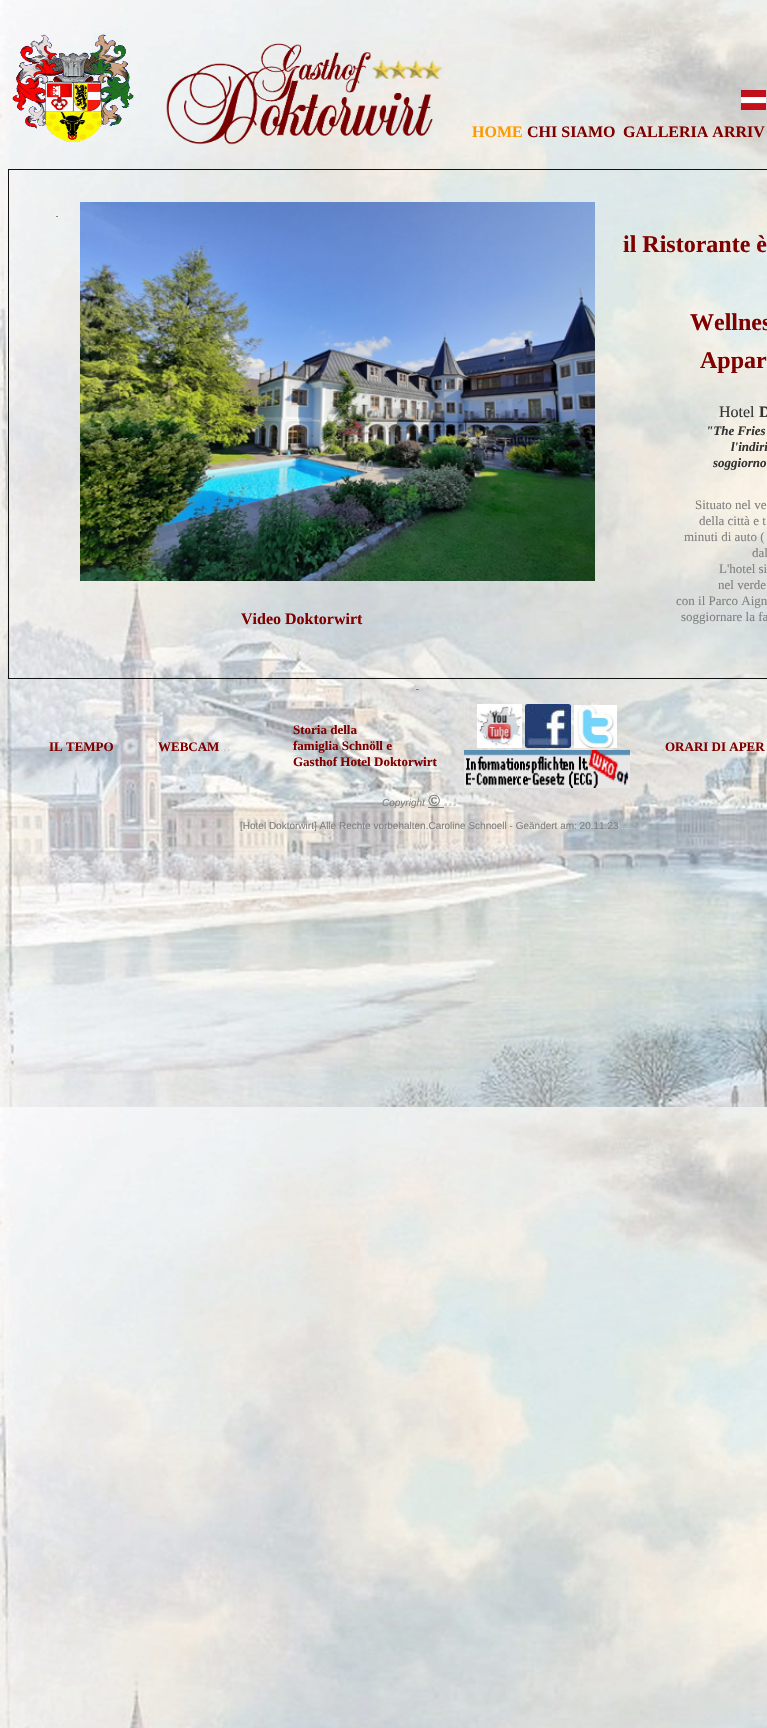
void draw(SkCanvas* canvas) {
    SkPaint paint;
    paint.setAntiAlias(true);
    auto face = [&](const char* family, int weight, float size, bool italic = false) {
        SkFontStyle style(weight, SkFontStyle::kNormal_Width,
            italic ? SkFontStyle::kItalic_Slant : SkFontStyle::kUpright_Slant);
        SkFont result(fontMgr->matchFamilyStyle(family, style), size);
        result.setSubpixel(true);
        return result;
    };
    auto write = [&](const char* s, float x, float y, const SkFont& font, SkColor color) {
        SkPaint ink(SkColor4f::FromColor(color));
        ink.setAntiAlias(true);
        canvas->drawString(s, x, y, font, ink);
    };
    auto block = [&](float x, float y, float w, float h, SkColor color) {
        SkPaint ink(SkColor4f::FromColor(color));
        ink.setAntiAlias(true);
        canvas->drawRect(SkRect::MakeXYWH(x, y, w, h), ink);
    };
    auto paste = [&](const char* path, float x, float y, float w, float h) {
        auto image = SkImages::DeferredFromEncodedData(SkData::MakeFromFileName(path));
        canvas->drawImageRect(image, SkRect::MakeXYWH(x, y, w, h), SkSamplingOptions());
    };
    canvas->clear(SK_ColorWHITE);
    paste("pic1.png", 0, 0, 767, 1728);
    paste("pic2.png", 12, 34, 122, 108);
    paste("pic3.png", 166, 43, 276, 102);
    paste("pic4.png", 741, 90, 25, 20);
    auto kFont1 = face("Liberation Serif", 700, 16);
    write("HOME", 472, 137, kFont1, SkColorSetRGB(255, 153, 0));
    write("CHI SIAMO", 527, 137, kFont1, SkColorSetRGB(128, 0, 0));
    write("GALLERIA ARRIV", 623, 137, kFont1, SkColorSetRGB(128, 0, 0));
    block(8, 169, 759, 1, SkColorSetRGB(17, 17, 17));
    block(8, 678, 759, 1, SkColorSetRGB(17, 17, 17));
    block(8, 169, 1, 510, SkColorSetRGB(17, 17, 17));
    block(56, 216, 2, 1, SkColorSetRGB(128, 128, 128));
    paste("pic5.png", 80, 202, 515, 379);
    write("Video Doktorwirt", 241, 624, kFont1, SkColorSetRGB(128, 0, 0));
    auto kFont2 = face("Liberation Serif", 700, 24);
    write("il Ristorante è", 623, 252, kFont2, SkColorSetRGB(128, 0, 0));
    write("Wellnes", 690, 330, kFont2, SkColorSetRGB(128, 0, 0));
    write("Appar", 700, 368, kFont2, SkColorSetRGB(128, 0, 0));
    auto kFont3 = face("Liberation Serif", 400, 16);
    write("Hotel", 719, 417, kFont3, SkColorSetRGB(51, 51, 51));
    write("D", 759, 417, kFont1, SkColorSetRGB(51, 51, 51));
    auto kFont4 = face("Liberation Serif", 700, 13, true);
    write("\"The Fries", 706, 435, kFont4, SkColorSetRGB(51, 51, 51));
    write("l'indiri", 731, 451, kFont4, SkColorSetRGB(51, 51, 51));
    write("soggiorno", 713, 467, kFont4, SkColorSetRGB(51, 51, 51));
    auto kFont5 = face("Liberation Serif", 400, 13);
    write("Situato nel ve", 695, 509, kFont5, SkColorSetRGB(128, 128, 128));
    write("della città e t", 699, 525, kFont5, SkColorSetRGB(128, 128, 128));
    write("minuti di auto (", 684, 541, kFont5, SkColorSetRGB(128, 128, 128));
    write("dal", 752, 557, kFont5, SkColorSetRGB(128, 128, 128));
    write("L'hotel si", 719, 573, kFont5, SkColorSetRGB(128, 128, 128));
    write("nel verde", 718, 589, kFont5, SkColorSetRGB(128, 128, 128));
    write("con il Parco Aign", 676, 605, kFont5, SkColorSetRGB(128, 128, 128));
    write("soggiornare la fa", 681, 621, kFont5, SkColorSetRGB(128, 128, 128));
    block(416, 689, 3, 1, SkColorSetRGB(128, 128, 128));
    auto kFont6 = face("Liberation Serif", 700, 13);
    write("IL TEMPO", 49, 751, kFont6, SkColorSetRGB(128, 0, 0));
    write("WEBCAM", 158, 751, kFont6, SkColorSetRGB(128, 0, 0));
    auto kFont7 = face("Liberation Serif", 400, 15);
    write("..", 223, 751, kFont7, SkColorSetRGB(202, 205, 208));
    write("Storia della", 293, 734, kFont6, SkColorSetRGB(128, 0, 0));
    write("famiglia Schnöll e", 293, 750, kFont6, SkColorSetRGB(128, 0, 0));
    write("Gasthof Hotel", 293, 766, kFont6, SkColorSetRGB(128, 0, 0));
    write("Doktorwirt", 374, 766, kFont6, SkColorSetRGB(128, 0, 0));
    paste("pic6.png", 477, 704, 45, 44);
    paste("pic7.png", 525, 704, 46, 44);
    paste("pic8.png", 574, 705, 43, 43);
    paste("pic9.png", 464, 750, 166, 38);
    auto kFont8 = face("Liberation Serif", 700, 15);
    write(".", 661, 751, kFont8, SkColorSetRGB(202, 205, 208));
    write("ORARI DI APER", 665, 751, kFont6, SkColorSetRGB(128, 0, 0));
    auto kFont9 = face("Liberation Sans", 400, 10, true);
    write("Copyright", 382, 806, kFont9, SkColorSetRGB(128, 128, 128));
    auto kFont10 = face("Liberation Sans", 700, 16, true);
    write("©", 428, 806, kFont10, SkColorSetRGB(128, 128, 128));
    write("...", 444, 806, kFont10, SkColorSetRGB(202, 205, 208));
    block(428, 807, 16, 1, SkColorSetRGB(128, 128, 128));
    write(".", 488, 806, kFont10, SkColorSetRGB(202, 205, 208));
    auto kFont11 = face("Liberation Sans", 400, 10);
    write("[Hotel Doktorwirt] Alle Rechte vorbehalten.Caroline Schnoell - Geändert am: 20.11.23", 240, 829, kFont11, SkColorSetRGB(128, 128, 128));
    write(".....", 621, 829, kFont11, SkColorSetRGB(202, 205, 208));
}
